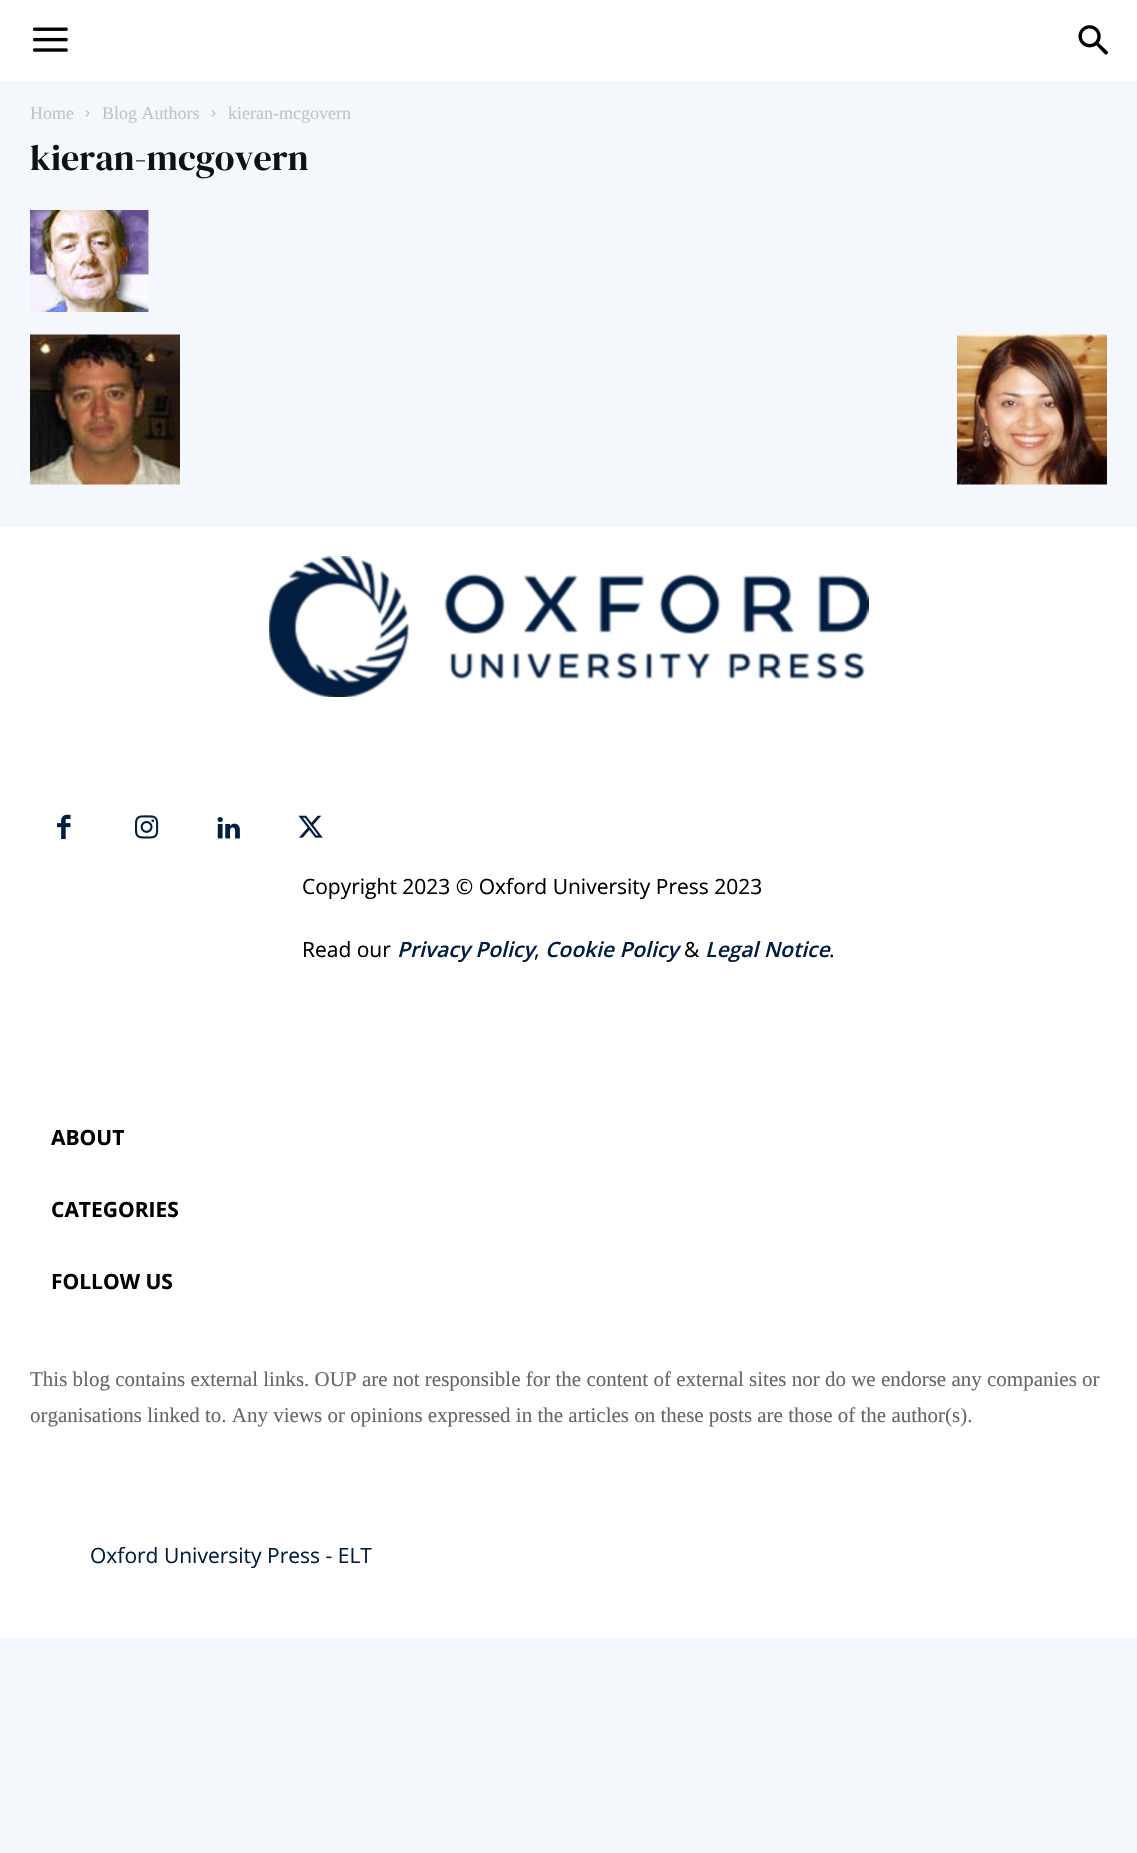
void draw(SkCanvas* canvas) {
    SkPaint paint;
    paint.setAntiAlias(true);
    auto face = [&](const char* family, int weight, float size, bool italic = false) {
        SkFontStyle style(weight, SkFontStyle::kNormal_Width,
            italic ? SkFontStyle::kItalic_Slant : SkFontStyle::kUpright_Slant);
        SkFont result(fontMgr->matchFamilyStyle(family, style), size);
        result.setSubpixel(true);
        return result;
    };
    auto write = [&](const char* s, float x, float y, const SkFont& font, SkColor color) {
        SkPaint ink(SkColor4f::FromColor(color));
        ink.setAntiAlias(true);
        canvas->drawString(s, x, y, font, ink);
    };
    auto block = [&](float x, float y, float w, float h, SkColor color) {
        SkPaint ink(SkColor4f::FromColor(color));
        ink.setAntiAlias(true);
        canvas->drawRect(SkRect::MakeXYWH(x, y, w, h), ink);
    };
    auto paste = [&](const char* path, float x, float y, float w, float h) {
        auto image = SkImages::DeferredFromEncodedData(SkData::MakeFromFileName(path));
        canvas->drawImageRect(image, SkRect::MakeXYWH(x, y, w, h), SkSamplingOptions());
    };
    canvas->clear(SkColorSetRGB(244, 247, 252));
    block(0, 0, 1137, 81, SK_ColorWHITE);
    paste("pic1.png", 33, 27, 35, 25);
    paste("pic2.png", 1078, 25, 30, 30);
    auto kFont1 = face("Liberation Serif", 400, 18);
    write("Home", 30, 119, kFont1, SkColorSetRGB(195, 195, 195));
    paste("pic3.png", 85, 110, 5, 7);
    write("Blog Authors", 102, 119, kFont1, SkColorSetRGB(195, 195, 195));
    paste("pic3.png", 211, 110, 5, 7);
    write("kieran-mcgovern", 228, 119, kFont1, SkColorSetRGB(195, 195, 195));
    auto kFont2 = face("DM Serif Display", 400, 36);
    write("kieran-mcgovern", 30, 170, kFont2, SkColorSetRGB(17, 17, 17));
    paste("pic4.png", 30, 210, 119, 102);
    paste("pic5.png", 30, 334, 150, 151);
    paste("pic6.png", 957, 334, 150, 151);
    block(0, 527, 1137, 1111, SK_ColorWHITE);
    paste("pic7.png", 269, 556, 600, 141);
    paste("pic8.png", 57, 814, 14, 26);
    paste("pic9.png", 135, 815, 24, 24);
    paste("pic10.png", 217, 817, 23, 22);
    paste("pic11.png", 298, 815, 25, 23);
    auto kFont3 = face("Open Sans", 400, 21);
    write("Copyright 2023 © Oxford University Press 2023", 302, 894, kFont3, SK_ColorBLACK);
    write("Read our", 302, 957, kFont3, SK_ColorBLACK);
    auto kFont4 = face("Open Sans", 600, 21, true);
    write("Privacy Policy", 397, 957, kFont4, SkColorSetRGB(1, 30, 65));
    write("Cookie Policy", 545, 957, kFont4, SkColorSetRGB(1, 30, 65));
    write("&", 684, 957, kFont3, SK_ColorBLACK);
    write("Legal Notice", 705, 957, kFont4, SkColorSetRGB(1, 30, 65));
    write(",", 534, 957, kFont3, SK_ColorBLACK);
    write(".", 829, 957, kFont3, SK_ColorBLACK);
    auto kFont5 = face("Open Sans", 700, 21);
    write("ABOUT", 51, 1145, kFont5, SK_ColorBLACK);
    write("CATEGORIES", 51, 1217, kFont5, SK_ColorBLACK);
    write("FOLLOW US", 51, 1289, kFont5, SK_ColorBLACK);
    auto kFont6 = face("Liberation Serif", 400, 21);
    write("This blog contains external links. OUP are not responsible for the content of external sites nor do we endorse any companies or", 30, 1386, kFont6, SkColorSetRGB(102, 102, 102));
    write("organisations linked to. Any views or opinions expressed in the articles on these posts are those of the author(s).", 30, 1422, kFont6, SkColorSetRGB(102, 102, 102));
    write("Oxford University Press - ELT", 90, 1563, kFont3, SkColorSetRGB(1, 30, 65));
}
